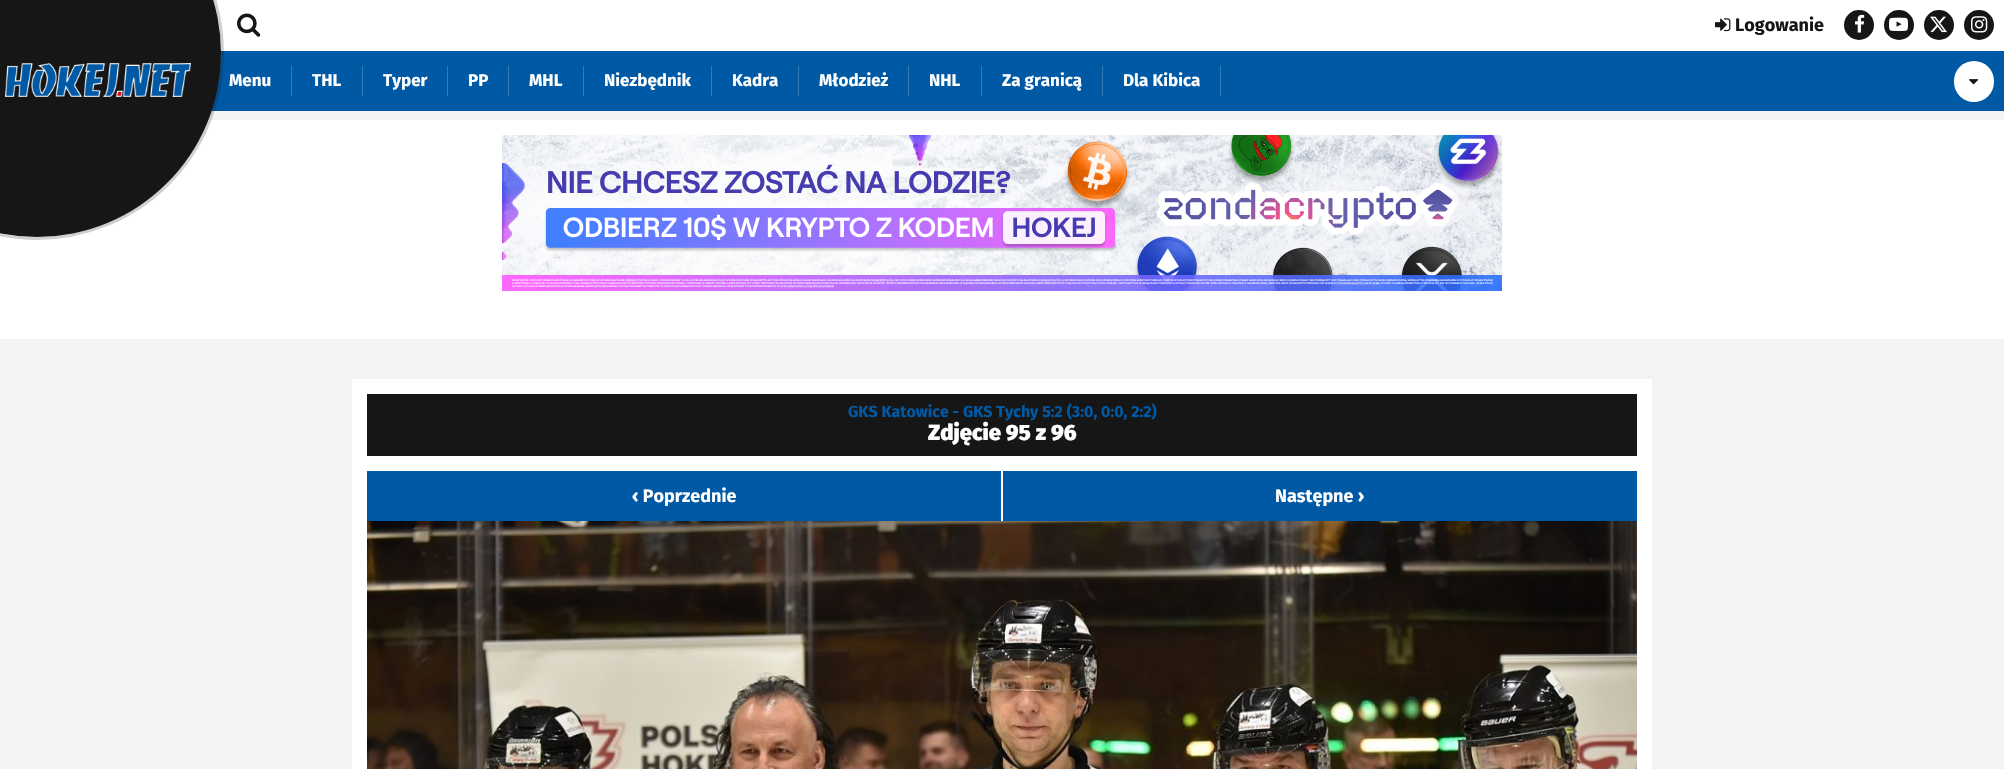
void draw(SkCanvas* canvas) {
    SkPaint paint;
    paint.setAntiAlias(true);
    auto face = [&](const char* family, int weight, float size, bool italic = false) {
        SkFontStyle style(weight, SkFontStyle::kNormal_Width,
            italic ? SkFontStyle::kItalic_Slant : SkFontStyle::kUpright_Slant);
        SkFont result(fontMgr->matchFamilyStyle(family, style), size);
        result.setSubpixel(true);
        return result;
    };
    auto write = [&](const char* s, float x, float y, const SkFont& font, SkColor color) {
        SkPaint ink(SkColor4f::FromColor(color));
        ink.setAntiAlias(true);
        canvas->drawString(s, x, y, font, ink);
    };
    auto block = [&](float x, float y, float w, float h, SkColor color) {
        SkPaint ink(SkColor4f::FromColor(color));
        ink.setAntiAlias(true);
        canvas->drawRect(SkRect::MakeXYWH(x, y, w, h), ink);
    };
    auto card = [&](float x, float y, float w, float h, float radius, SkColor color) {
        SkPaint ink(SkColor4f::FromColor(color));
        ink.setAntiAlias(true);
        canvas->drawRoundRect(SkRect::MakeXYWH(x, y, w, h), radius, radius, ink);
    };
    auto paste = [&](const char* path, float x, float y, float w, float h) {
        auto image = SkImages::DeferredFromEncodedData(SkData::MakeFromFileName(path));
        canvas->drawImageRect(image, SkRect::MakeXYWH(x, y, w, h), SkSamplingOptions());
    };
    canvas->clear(SkColorSetRGB(243, 243, 243));
    block(213, 0, 1791, 51, SK_ColorWHITE);
    block(211, 51, 1793, 60, SkColorSetRGB(0, 89, 164));
    block(0, 120, 2004, 219, SK_ColorWHITE);
    paint.setColor(SkColorSetRGB(22, 22, 22));
    canvas->drawCircle(37, 53, 184, paint);
    paint.setStyle(SkPaint::kStroke_Style);
    paint.setStrokeWidth(3);
    paint.setColor(SkColorSetARGB(51, 22, 22, 22));
    canvas->drawCircle(37, 53, 185.5f, paint);
    paste("pic1.png", 237, 13, 24, 24);
    paste("pic2.png", 5, 63, 186, 34);
    paste("pic3.png", 1715, 18, 16, 14);
    auto kFont1 = face("Fira Sans", 700, 18);
    write("Logowanie", 1735, 31, kFont1, SkColorSetRGB(22, 22, 22));
    paint.setStyle(SkPaint::kFill_Style);
    paint.setColor(SkColorSetRGB(22, 22, 22));
    canvas->drawCircle(1859, 25, 15, paint);
    paste("pic4.png", 1855, 14, 10, 19);
    canvas->drawCircle(1899, 25, 15, paint);
    paste("pic5.png", 1889, 17, 19, 15);
    canvas->drawCircle(1939, 25, 15, paint);
    paste("pic6.png", 1930, 16, 17, 17);
    canvas->drawCircle(1979, 25, 15, paint);
    paste("pic7.png", 1971, 16, 17, 17);
    block(291, 66, 1, 30, SkColorSetRGB(51, 122, 182));
    auto kFont2 = face("Fira Sans", 700, 17);
    write("Menu", 229, 86, kFont2, SK_ColorWHITE);
    block(362, 66, 1, 30, SkColorSetRGB(51, 122, 182));
    write("THL", 312, 86, kFont2, SK_ColorWHITE);
    block(447, 66, 1, 30, SkColorSetRGB(51, 122, 182));
    write("Typer", 383, 86, kFont2, SK_ColorWHITE);
    block(508, 66, 1, 30, SkColorSetRGB(51, 122, 182));
    write("PP", 468, 86, kFont2, SK_ColorWHITE);
    block(583, 66, 1, 30, SkColorSetRGB(51, 122, 182));
    write("MHL", 529, 86, kFont2, SK_ColorWHITE);
    block(711, 66, 1, 30, SkColorSetRGB(51, 122, 182));
    write("Niezbędnik", 604, 86, kFont2, SK_ColorWHITE);
    block(798, 66, 1, 30, SkColorSetRGB(51, 122, 182));
    write("Kadra", 732, 86, kFont2, SK_ColorWHITE);
    block(908, 66, 1, 30, SkColorSetRGB(51, 122, 182));
    write("Młodzież", 819, 86, kFont2, SK_ColorWHITE);
    block(981, 66, 1, 30, SkColorSetRGB(51, 122, 182));
    write("NHL", 929, 86, kFont2, SK_ColorWHITE);
    block(1102, 66, 1, 30, SkColorSetRGB(51, 122, 182));
    write("Za granicą", 1002, 86, kFont2, SK_ColorWHITE);
    block(1220, 66, 1, 30, SkColorSetRGB(51, 122, 182));
    write("Dla Kibica", 1123, 86, kFont2, SK_ColorWHITE);
    card(1954, 61, 40, 41, 20, SK_ColorWHITE);
    paste("pic8.png", 1969, 79, 10, 6);
    paste("pic9.png", 502, 135, 1000, 156);
    block(352, 379, 1300, 390, SK_ColorWHITE);
    block(367, 394, 1270, 62, SkColorSetRGB(22, 22, 22));
    auto kFont3 = face("Fira Sans", 700, 16);
    write("GKS Katowice - GKS Tychy 5:2 (3:0, 0:0, 2:2)", 848, 417, kFont3, SkColorSetRGB(0, 89, 164));
    auto kFont4 = face("Fira Sans", 900, 22);
    write("Zdjęcie 95 z 96", 928, 440, kFont4, SK_ColorWHITE);
    block(367, 471, 634, 50, SkColorSetRGB(0, 89, 164));
    write("‹ Poprzednie", 632, 502, kFont1, SK_ColorWHITE);
    block(1003, 471, 634, 50, SkColorSetRGB(0, 89, 164));
    write("Następne ›", 1275, 502, kFont1, SK_ColorWHITE);
    paste("pic10.png", 367, 521, 1270, 248);
}
